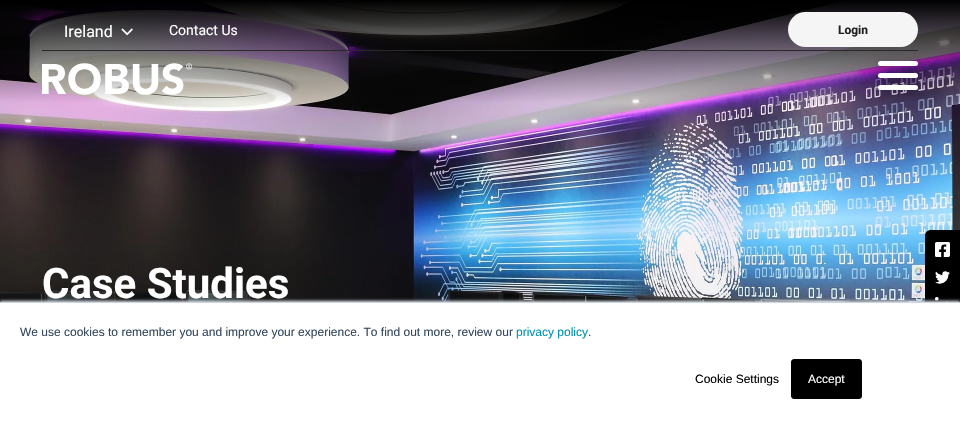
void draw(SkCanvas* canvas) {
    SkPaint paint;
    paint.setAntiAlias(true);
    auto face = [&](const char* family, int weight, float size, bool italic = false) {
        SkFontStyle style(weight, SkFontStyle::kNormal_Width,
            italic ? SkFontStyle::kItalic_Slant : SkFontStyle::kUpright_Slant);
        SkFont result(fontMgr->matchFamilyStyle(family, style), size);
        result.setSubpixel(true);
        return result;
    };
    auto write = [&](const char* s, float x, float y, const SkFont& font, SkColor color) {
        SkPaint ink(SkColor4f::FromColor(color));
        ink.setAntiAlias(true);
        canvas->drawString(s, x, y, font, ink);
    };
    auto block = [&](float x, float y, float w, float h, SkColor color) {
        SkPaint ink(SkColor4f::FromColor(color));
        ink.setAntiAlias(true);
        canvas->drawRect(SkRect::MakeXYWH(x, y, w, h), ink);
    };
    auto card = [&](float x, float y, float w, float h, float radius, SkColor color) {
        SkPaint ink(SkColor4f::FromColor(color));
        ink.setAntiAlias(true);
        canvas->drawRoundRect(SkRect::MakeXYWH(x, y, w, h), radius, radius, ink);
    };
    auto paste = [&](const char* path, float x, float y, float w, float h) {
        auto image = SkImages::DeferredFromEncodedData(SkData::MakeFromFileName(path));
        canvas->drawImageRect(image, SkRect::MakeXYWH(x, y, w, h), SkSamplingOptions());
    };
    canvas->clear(SK_ColorWHITE);
    paste("pic3.png", 0, 0, 960, 302);
    auto kFont1 = face("Roboto", 400, 16);
    write("Ireland", 64, 37, kFont1, SK_ColorWHITE);
    paste("pic1.png", 121, 28, 12, 8);
    auto kFont2 = face("Roboto", 400, 14);
    write("Contact Us", 169, 35, kFont2, SK_ColorWHITE);
    card(788, 12, 130, 35, 17.5f, SkColorSetRGB(245, 245, 245));
    auto kFont3 = face("Roboto", 700, 12);
    write("Login", 838, 34, kFont3, SkColorSetRGB(32, 32, 32));
    paste("pic2.png", 42, 63, 150, 32);
    block(42, 50, 876, 1, SkColorSetRGB(41, 41, 41));
    paint.setColor(SkColorSetARGB(77, 0, 0, 0));
    paint.setMaskFilter(SkMaskFilter::MakeBlur(kNormal_SkBlurStyle, 5));
    canvas->drawRoundRect(SkRect::MakeXYWH(878, 63, 40, 5), 2.5f, 2.5f, paint);
    paint.setMaskFilter(nullptr);
    card(878, 61, 40, 5, 2.5f, SK_ColorWHITE);
    paint.setMaskFilter(SkMaskFilter::MakeBlur(kNormal_SkBlurStyle, 5));
    canvas->drawRoundRect(SkRect::MakeXYWH(878, 75, 40, 5), 2.5f, 2.5f, paint);
    paint.setMaskFilter(nullptr);
    card(878, 73, 40, 5, 2.5f, SK_ColorWHITE);
    paint.setMaskFilter(SkMaskFilter::MakeBlur(kNormal_SkBlurStyle, 5));
    canvas->drawRoundRect(SkRect::MakeXYWH(878, 87, 40, 5), 2.5f, 2.5f, paint);
    paint.setMaskFilter(nullptr);
    card(878, 85, 40, 5, 2.5f, SK_ColorWHITE);
    auto kFont4 = face("Roboto", 700, 42);
    write("Case Studies", 42, 298, kFont4, SK_ColorWHITE);
    paint.setColor(SK_ColorBLACK);
    canvas->drawPath(SkPathBuilder().moveTo(931, 230).lineTo(960, 230).lineTo(960, 379).lineTo(931, 379).cubicTo(927.5f, 379, 925, 376.5f, 925, 373).lineTo(925, 236).cubicTo(925, 232.5f, 927.5f, 230, 931, 230).close().detach(), paint);
    paste("pic4.png", 935, 242, 15, 15);
    paste("pic5.png", 935, 271, 15, 13);
    paste("pic6.png", 935, 297, 13, 5);
    paint.setColor(SkColorSetRGB(234, 240, 246));
    paint.setMaskFilter(SkMaskFilter::MakeBlur(kNormal_SkBlurStyle, 1.5f));
    canvas->drawRect(SkRect::MakeXYWH(0, 301, 960, 123), paint);
    paint.setMaskFilter(nullptr);
    block(0, 303, 960, 122, SK_ColorWHITE);
    block(0, 302, 960, 1, SkColorSetRGB(203, 214, 226));
    auto kFont5 = face("Liberation Sans", 400, 12);
    write("We use cookies to remember you and improve your experience. To find out more, review our", 20, 336, kFont5, SkColorSetRGB(51, 71, 91));
    write("privacy policy", 516, 336, kFont5, SkColorSetRGB(0, 145, 174));
    write(".", 588, 336, kFont5, SkColorSetRGB(51, 71, 91));
    write("Cookie Settings", 695, 383, kFont5, SK_ColorBLACK);
    paint.setColor(SK_ColorBLACK);
    canvas->drawRoundRect(SkRect::MakeXYWH(791.5f, 359.5f, 70, 39), 2.5f, 2.5f, paint);
    paint.setStyle(SkPaint::kStroke_Style);
    paint.setStrokeWidth(1);
    canvas->drawRoundRect(SkRect::MakeXYWH(791.5f, 359.5f, 70, 39), 2.5f, 2.5f, paint);
    write("Accept", 808, 383, kFont5, SK_ColorWHITE);
}
